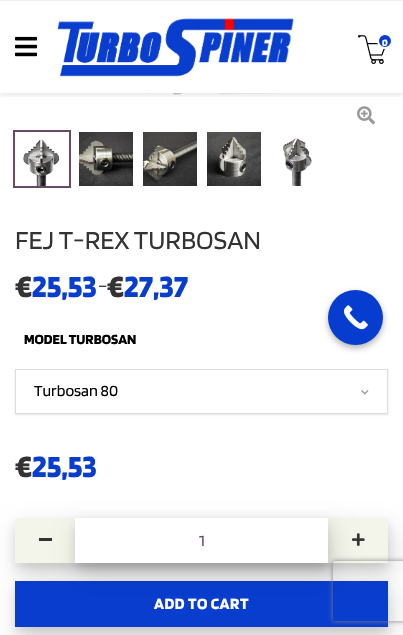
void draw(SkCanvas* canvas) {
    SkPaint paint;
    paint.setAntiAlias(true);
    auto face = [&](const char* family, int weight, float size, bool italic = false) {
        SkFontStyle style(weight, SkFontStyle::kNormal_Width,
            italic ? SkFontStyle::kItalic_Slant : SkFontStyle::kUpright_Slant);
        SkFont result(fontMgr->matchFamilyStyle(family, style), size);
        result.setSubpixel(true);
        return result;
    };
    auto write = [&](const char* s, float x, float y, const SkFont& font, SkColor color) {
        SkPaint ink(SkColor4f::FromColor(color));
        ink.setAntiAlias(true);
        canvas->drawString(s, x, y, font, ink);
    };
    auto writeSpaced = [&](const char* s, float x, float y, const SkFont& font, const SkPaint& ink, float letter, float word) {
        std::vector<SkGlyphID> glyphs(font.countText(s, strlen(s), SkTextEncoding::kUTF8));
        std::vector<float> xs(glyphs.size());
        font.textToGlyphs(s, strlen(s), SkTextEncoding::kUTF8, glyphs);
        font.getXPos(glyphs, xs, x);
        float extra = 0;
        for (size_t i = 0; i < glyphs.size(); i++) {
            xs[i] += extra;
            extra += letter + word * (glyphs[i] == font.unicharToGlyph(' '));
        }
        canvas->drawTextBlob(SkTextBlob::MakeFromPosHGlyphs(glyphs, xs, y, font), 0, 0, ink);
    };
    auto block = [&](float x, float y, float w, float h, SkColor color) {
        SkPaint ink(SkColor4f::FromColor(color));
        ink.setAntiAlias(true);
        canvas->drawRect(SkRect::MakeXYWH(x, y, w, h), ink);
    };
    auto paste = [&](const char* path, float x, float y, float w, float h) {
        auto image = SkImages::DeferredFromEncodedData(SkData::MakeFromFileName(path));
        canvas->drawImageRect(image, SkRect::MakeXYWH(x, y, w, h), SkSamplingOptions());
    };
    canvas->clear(SK_ColorWHITE);
    block(0, 0, 403, 1, SkColorSetRGB(238, 238, 238));
    paste("pic4.png", 147, 93, 127, 2);
    canvas->save();
    canvas->clipRect(SkRect::MakeXYWH(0, 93, 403, 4));
    paint.setColor(SkColorSetARGB(26, 0, 0, 0));
    paint.setMaskFilter(SkMaskFilter::MakeBlur(kNormal_SkBlurStyle, 2.5f));
    canvas->drawRect(SkRect::MakeXYWH(0, 3, 403, 92), paint);
    paint.setMaskFilter(nullptr);
    canvas->restore();
    paste("pic1.png", 15, 36, 23, 21);
    paste("pic2.png", 57, 18, 237, 59);
    paste("pic3.png", 358, 35, 28, 29);
    paint.setColor(SkColorSetRGB(8, 61, 206));
    canvas->drawCircle(385, 41, 7, paint);
    paint.setStyle(SkPaint::kStroke_Style);
    paint.setStrokeWidth(2);
    paint.setColor(SK_ColorWHITE);
    canvas->drawCircle(385, 41, 7, paint);
    auto kFont1 = face("Blinker", 700, 10);
    write("0", 382, 46, kFont1, SK_ColorWHITE);
    paste("pic5.png", 357, 106, 18, 19);
    paint.setColor(SkColorSetRGB(103, 75, 96));
    canvas->drawRect(SkRect::MakeXYWH(14, 131, 56, 56), paint);
    paste("pic6.png", 23, 132, 37, 54);
    paste("pic7.png", 79, 132, 54, 54);
    paste("pic8.png", 143, 132, 54, 54);
    paste("pic9.png", 207, 132, 54, 54);
    paste("pic10.png", 283, 138, 29, 48);
    auto kFont2 = face("Blinker", 400, 27);
    write("FEJ T-REX TURBOSAN", 15, 249, kFont2, SkColorSetRGB(51, 51, 51));
    auto kFont3 = face("Blinker", 700, 32);
    write("€", 15, 297, kFont3, SkColorSetRGB(51, 51, 51));
    write("25,53", 32, 297, kFont3, SkColorSetRGB(8, 61, 206));
    auto kFont4 = face("Blinker", 400, 18);
    write("–", 98, 292, kFont4, SkColorSetRGB(51, 51, 51));
    write("€", 107, 297, kFont3, SkColorSetRGB(51, 51, 51));
    write("27,37", 124, 297, kFont3, SkColorSetRGB(8, 61, 206));
    auto kFont5 = face("Blinker", 700, 14.5f);
    write("MODEL TURBOSAN", 24, 344, kFont5, SK_ColorBLACK);
    canvas->save();
    canvas->clipPath(SkPathBuilder(SkPathFillType::kEvenOdd).moveTo(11, 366).lineTo(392, 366).lineTo(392, 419).lineTo(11, 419).close().moveTo(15, 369).lineTo(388, 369).lineTo(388, 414).lineTo(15, 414).close().detach(), true);
    paint.setStyle(SkPaint::kFill_Style);
    paint.setColor(SkColorSetARGB(26, 0, 0, 0));
    paint.setMaskFilter(SkMaskFilter::MakeBlur(kNormal_SkBlurStyle, 1));
    canvas->drawRect(SkRect::MakeXYWH(15, 370, 373, 45), paint);
    paint.setMaskFilter(nullptr);
    canvas->restore();
    paste("pic11.png", 361, 390, 8, 5);
    paint.setStyle(SkPaint::kStroke_Style);
    paint.setStrokeWidth(1);
    paint.setColor(SkColorSetRGB(221, 221, 221));
    canvas->drawRect(SkRect::MakeXYWH(15.5f, 369.5f, 372, 44), paint);
    auto kFont6 = face("Blinker", 400, 16);
    write("Turbosan 80", 34, 396, kFont6, SK_ColorBLACK);
    write("€", 15, 477, kFont3, SkColorSetRGB(51, 51, 51));
    write("25,53", 32, 477, kFont3, SkColorSetRGB(8, 61, 206));
    canvas->save();
    canvas->clipPath(SkPathBuilder(SkPathFillType::kEvenOdd).moveTo(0, 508).lineTo(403, 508).lineTo(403, 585).lineTo(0, 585).close().moveTo(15, 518).lineTo(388, 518).lineTo(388, 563).lineTo(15, 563).close().detach(), true);
    paint.setStyle(SkPaint::kFill_Style);
    paint.setColor(SkColorSetARGB(31, 0, 0, 0));
    paint.setMaskFilter(SkMaskFilter::MakeBlur(kNormal_SkBlurStyle, 5));
    canvas->drawRect(SkRect::MakeXYWH(15, 524, 373, 45), paint);
    paint.setMaskFilter(nullptr);
    canvas->restore();
    canvas->save();
    canvas->clipPath(SkPathBuilder(SkPathFillType::kEvenOdd).moveTo(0, 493).lineTo(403, 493).lineTo(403, 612).lineTo(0, 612).close().moveTo(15, 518).lineTo(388, 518).lineTo(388, 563).lineTo(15, 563).close().detach(), true);
    paint.setMaskFilter(SkMaskFilter::MakeBlur(kNormal_SkBlurStyle, 12));
    canvas->drawRect(SkRect::MakeXYWH(20, 530, 373, 45), paint);
    paint.setMaskFilter(nullptr);
    canvas->restore();
    block(15, 518, 60, 45, SkColorSetRGB(243, 244, 234));
    block(39, 538, 13, 3, SkColorSetRGB(51, 51, 51));
    block(328, 518, 60, 45, SkColorSetRGB(243, 244, 234));
    paint.setMaskFilter(SkMaskFilter::MakeBlur(kNormal_SkBlurStyle, 5));
    canvas->drawRect(SkRect::MakeXYWH(15, 587, 373, 46), paint);
    paint.setMaskFilter(nullptr);
    paint.setMaskFilter(SkMaskFilter::MakeBlur(kNormal_SkBlurStyle, 12));
    canvas->drawRect(SkRect::MakeXYWH(20, 593, 373, 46), paint);
    paint.setMaskFilter(nullptr);
    block(15, 581, 373, 46, SkColorSetRGB(8, 61, 206));
    canvas->save();
    canvas->clipPath(SkPathBuilder(SkPathFillType::kEvenOdd).moveTo(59, 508).lineTo(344, 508).lineTo(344, 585).lineTo(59, 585).close().moveTo(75, 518).lineTo(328, 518).lineTo(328, 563).lineTo(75, 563).close().detach(), true);
    paint.setMaskFilter(SkMaskFilter::MakeBlur(kNormal_SkBlurStyle, 5));
    canvas->drawRect(SkRect::MakeXYWH(75, 524, 253, 45), paint);
    paint.setMaskFilter(nullptr);
    canvas->restore();
    paste("pic12.png", 352, 533, 13, 13);
    canvas->save();
    canvas->clipPath(SkPathBuilder(SkPathFillType::kEvenOdd).moveTo(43, 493).lineTo(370, 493).lineTo(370, 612).lineTo(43, 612).close().moveTo(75, 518).lineTo(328, 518).lineTo(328, 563).lineTo(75, 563).close().detach(), true);
    paint.setMaskFilter(SkMaskFilter::MakeBlur(kNormal_SkBlurStyle, 12));
    canvas->drawRect(SkRect::MakeXYWH(80, 530, 253, 45), paint);
    paint.setMaskFilter(nullptr);
    canvas->restore();
    write("1", 199, 546, kFont6, SkColorSetRGB(103, 75, 96));
    auto kFont7 = face("Blinker", 700, 16.25f);
    paint.setColor(SK_ColorWHITE);
    writeSpaced("ADD TO CART", 154, 609, kFont7, paint, 0.5f, 0);
    paint.setColor(SkColorSetARGB(77, 0, 0, 0));
    paint.setMaskFilter(SkMaskFilter::MakeBlur(kNormal_SkBlurStyle, 3));
    canvas->drawRoundRect(SkRect::MakeXYWH(328, 293, 55, 55), 27.5f, 27.5f, paint);
    paint.setMaskFilter(nullptr);
    paint.setColor(SkColorSetRGB(7, 61, 206));
    canvas->drawCircle(355.5f, 317.5f, 27.5f, paint);
    paste("pic13.png", 343, 305, 25, 25);
    canvas->save();
    canvas->clipPath(SkPathBuilder(SkPathFillType::kEvenOdd).moveTo(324, 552).lineTo(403, 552).lineTo(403, 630).lineTo(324, 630).close().moveTo(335, 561).lineTo(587, 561).cubicTo(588, 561, 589, 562, 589, 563).lineTo(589, 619).cubicTo(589, 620, 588, 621, 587, 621).lineTo(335, 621).cubicTo(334, 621, 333, 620, 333, 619).lineTo(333, 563).cubicTo(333, 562, 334, 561, 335, 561).close().detach(), true);
    paint.setColor(SkColorSetRGB(128, 128, 128));
    paint.setMaskFilter(SkMaskFilter::MakeBlur(kNormal_SkBlurStyle, 2.5f));
    canvas->drawRoundRect(SkRect::MakeXYWH(333, 561, 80, 60), 2, 2, paint);
    paint.setMaskFilter(nullptr);
    canvas->restore();
}
